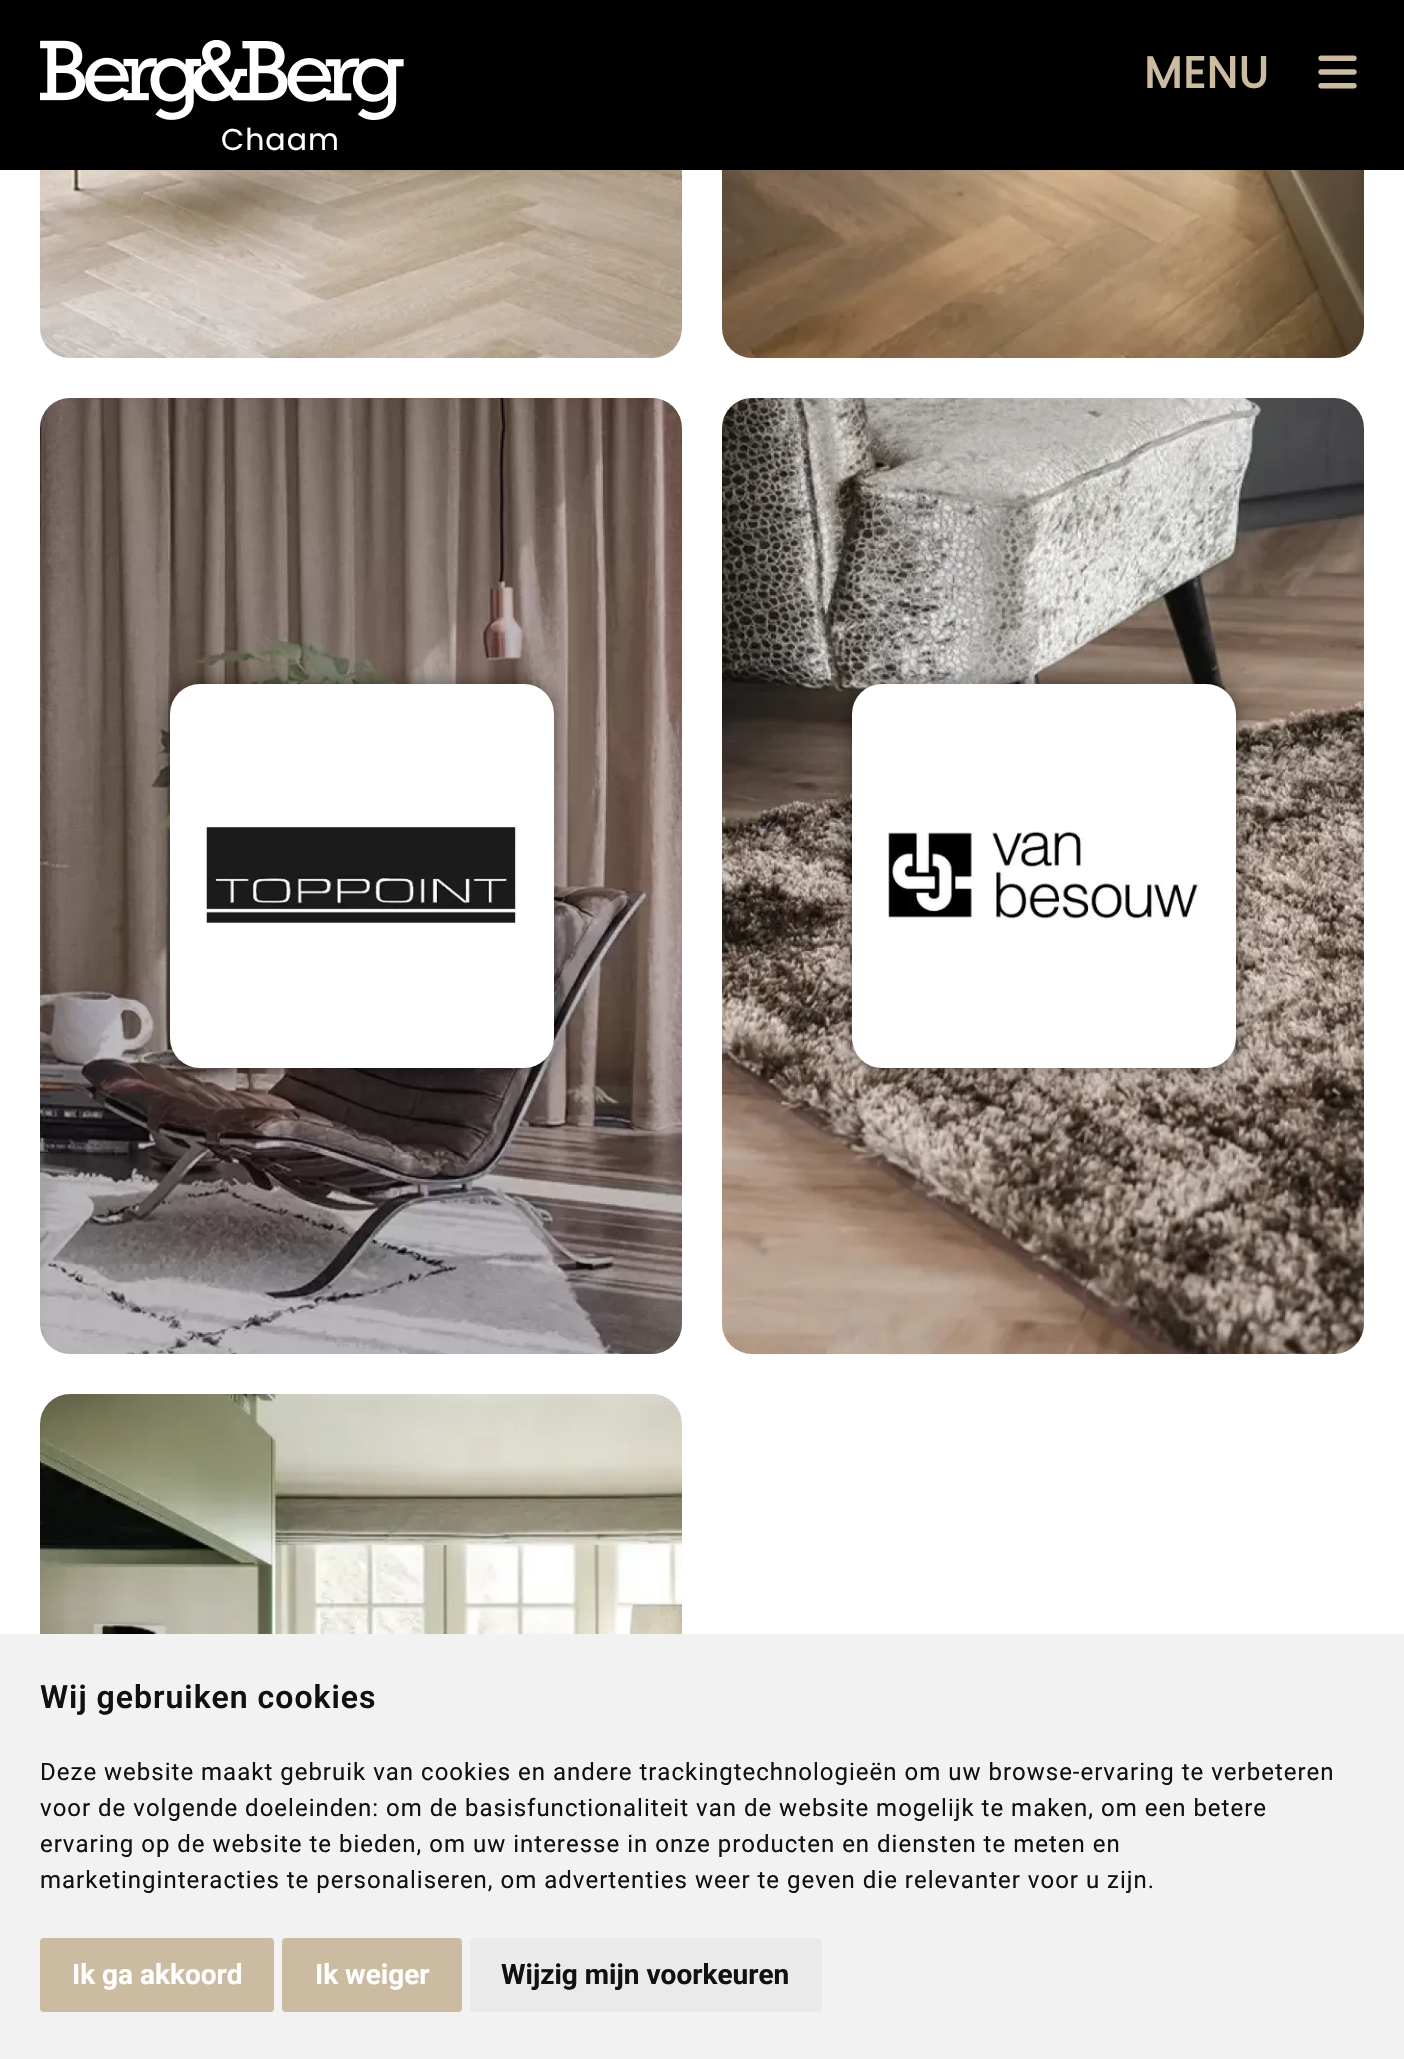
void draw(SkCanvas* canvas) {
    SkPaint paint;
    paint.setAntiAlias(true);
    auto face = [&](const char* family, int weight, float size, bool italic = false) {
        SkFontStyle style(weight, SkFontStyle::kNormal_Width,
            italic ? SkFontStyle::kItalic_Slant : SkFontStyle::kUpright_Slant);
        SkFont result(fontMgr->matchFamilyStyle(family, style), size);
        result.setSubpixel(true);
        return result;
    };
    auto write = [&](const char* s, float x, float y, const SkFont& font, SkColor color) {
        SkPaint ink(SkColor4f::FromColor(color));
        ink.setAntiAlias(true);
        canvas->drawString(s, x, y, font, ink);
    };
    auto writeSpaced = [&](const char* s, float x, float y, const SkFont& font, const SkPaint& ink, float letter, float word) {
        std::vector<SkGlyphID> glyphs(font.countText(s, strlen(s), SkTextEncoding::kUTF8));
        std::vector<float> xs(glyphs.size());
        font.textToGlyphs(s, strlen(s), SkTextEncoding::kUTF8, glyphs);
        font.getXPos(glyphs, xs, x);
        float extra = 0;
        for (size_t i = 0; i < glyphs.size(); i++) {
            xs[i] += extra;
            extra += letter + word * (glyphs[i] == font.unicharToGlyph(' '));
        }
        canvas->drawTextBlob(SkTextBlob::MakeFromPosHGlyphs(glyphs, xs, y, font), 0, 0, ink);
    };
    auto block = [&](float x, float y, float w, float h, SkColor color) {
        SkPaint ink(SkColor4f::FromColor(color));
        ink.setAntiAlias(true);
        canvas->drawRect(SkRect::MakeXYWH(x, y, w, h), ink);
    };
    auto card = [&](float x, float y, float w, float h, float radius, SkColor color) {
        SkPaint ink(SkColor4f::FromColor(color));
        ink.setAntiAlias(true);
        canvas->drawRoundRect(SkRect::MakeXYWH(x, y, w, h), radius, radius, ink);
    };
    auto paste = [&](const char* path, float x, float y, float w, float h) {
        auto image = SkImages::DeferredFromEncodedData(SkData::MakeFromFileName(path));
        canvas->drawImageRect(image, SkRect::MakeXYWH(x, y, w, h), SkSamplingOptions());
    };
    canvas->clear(SK_ColorWHITE);
    block(0, 0, 1404, 170, SK_ColorBLACK);
    auto kFont1 = face("Poppins", 700, 44);
    paint.setColor(SkColorSetRGB(203, 187, 160));
    writeSpaced("MENU", 1144, 88, kFont1, paint, 1, 0);
    paste("pic1.png", 1318, 55, 39, 34);
    paste("pic2.png", 40, 40, 364, 80);
    auto kFont2 = face("Poppins", 400, 30);
    paint.setColor(SK_ColorWHITE);
    writeSpaced("Chaam", 221, 150, kFont2, paint, 1, 0);
    paste("pic3.png", 40, 170, 642, 188);
    paste("pic4.png", 722, 170, 642, 188);
    paste("pic5.png", 40, 398, 642, 956);
    paint.setColor(SkColorSetARGB(128, 0, 0, 0));
    paint.setMaskFilter(SkMaskFilter::MakeBlur(kNormal_SkBlurStyle, 10));
    canvas->drawRoundRect(SkRect::MakeXYWH(170, 684, 384, 384), 30, 30, paint);
    paint.setMaskFilter(nullptr);
    card(170, 684, 384, 384, 30, SK_ColorWHITE);
    paste("pic6.png", 205, 824, 313, 99);
    paste("pic7.png", 722, 398, 642, 956);
    paint.setMaskFilter(SkMaskFilter::MakeBlur(kNormal_SkBlurStyle, 10));
    canvas->drawRoundRect(SkRect::MakeXYWH(852, 684, 384, 384), 30, 30, paint);
    paint.setMaskFilter(nullptr);
    card(852, 684, 384, 384, 30, SK_ColorWHITE);
    paste("pic8.png", 887, 831, 313, 89);
    paste("pic9.png", 40, 1394, 642, 240);
    block(0, 1634, 1404, 425, SkColorSetRGB(242, 242, 242));
    auto kFont3 = face("Roboto", 600, 32);
    paint.setColor(SkColorSetRGB(17, 17, 17));
    writeSpaced("Wij gebruiken cookies", 40, 1708, kFont3, paint, 1, 0);
    auto kFont4 = face("Roboto", 400, 24);
    writeSpaced("Deze website maakt gebruik van cookies en andere trackingtechnologieën om uw browse-ervaring te verbeteren", 40, 1780, kFont4, paint, 1, 0);
    writeSpaced("voor de volgende doeleinden: om de basisfunctionaliteit van de website mogelijk te maken, om een betere", 40, 1816, kFont4, paint, 1, 0);
    writeSpaced("ervaring op de website te bieden, om uw interesse in onze producten en diensten te meten en", 40, 1852, kFont4, paint, 1, 0);
    writeSpaced("marketinginteracties te personaliseren, om advertenties weer te geven die relevanter voor u zijn.", 40, 1888, kFont4, paint, 1, 0);
    card(40, 1938, 234, 74, 4, SkColorSetRGB(203, 187, 160));
    auto kFont5 = face("Roboto", 700, 28);
    write("Ik ga akkoord", 72, 1984, kFont5, SK_ColorWHITE);
    card(282, 1938, 180, 74, 4, SkColorSetRGB(203, 187, 160));
    write("Ik weiger", 315, 1984, kFont5, SK_ColorWHITE);
    card(470, 1938, 352, 74, 4, SkColorSetRGB(234, 234, 234));
    write("Wijzig mijn voorkeuren", 501, 1984, kFont5, SkColorSetRGB(17, 17, 17));
}
